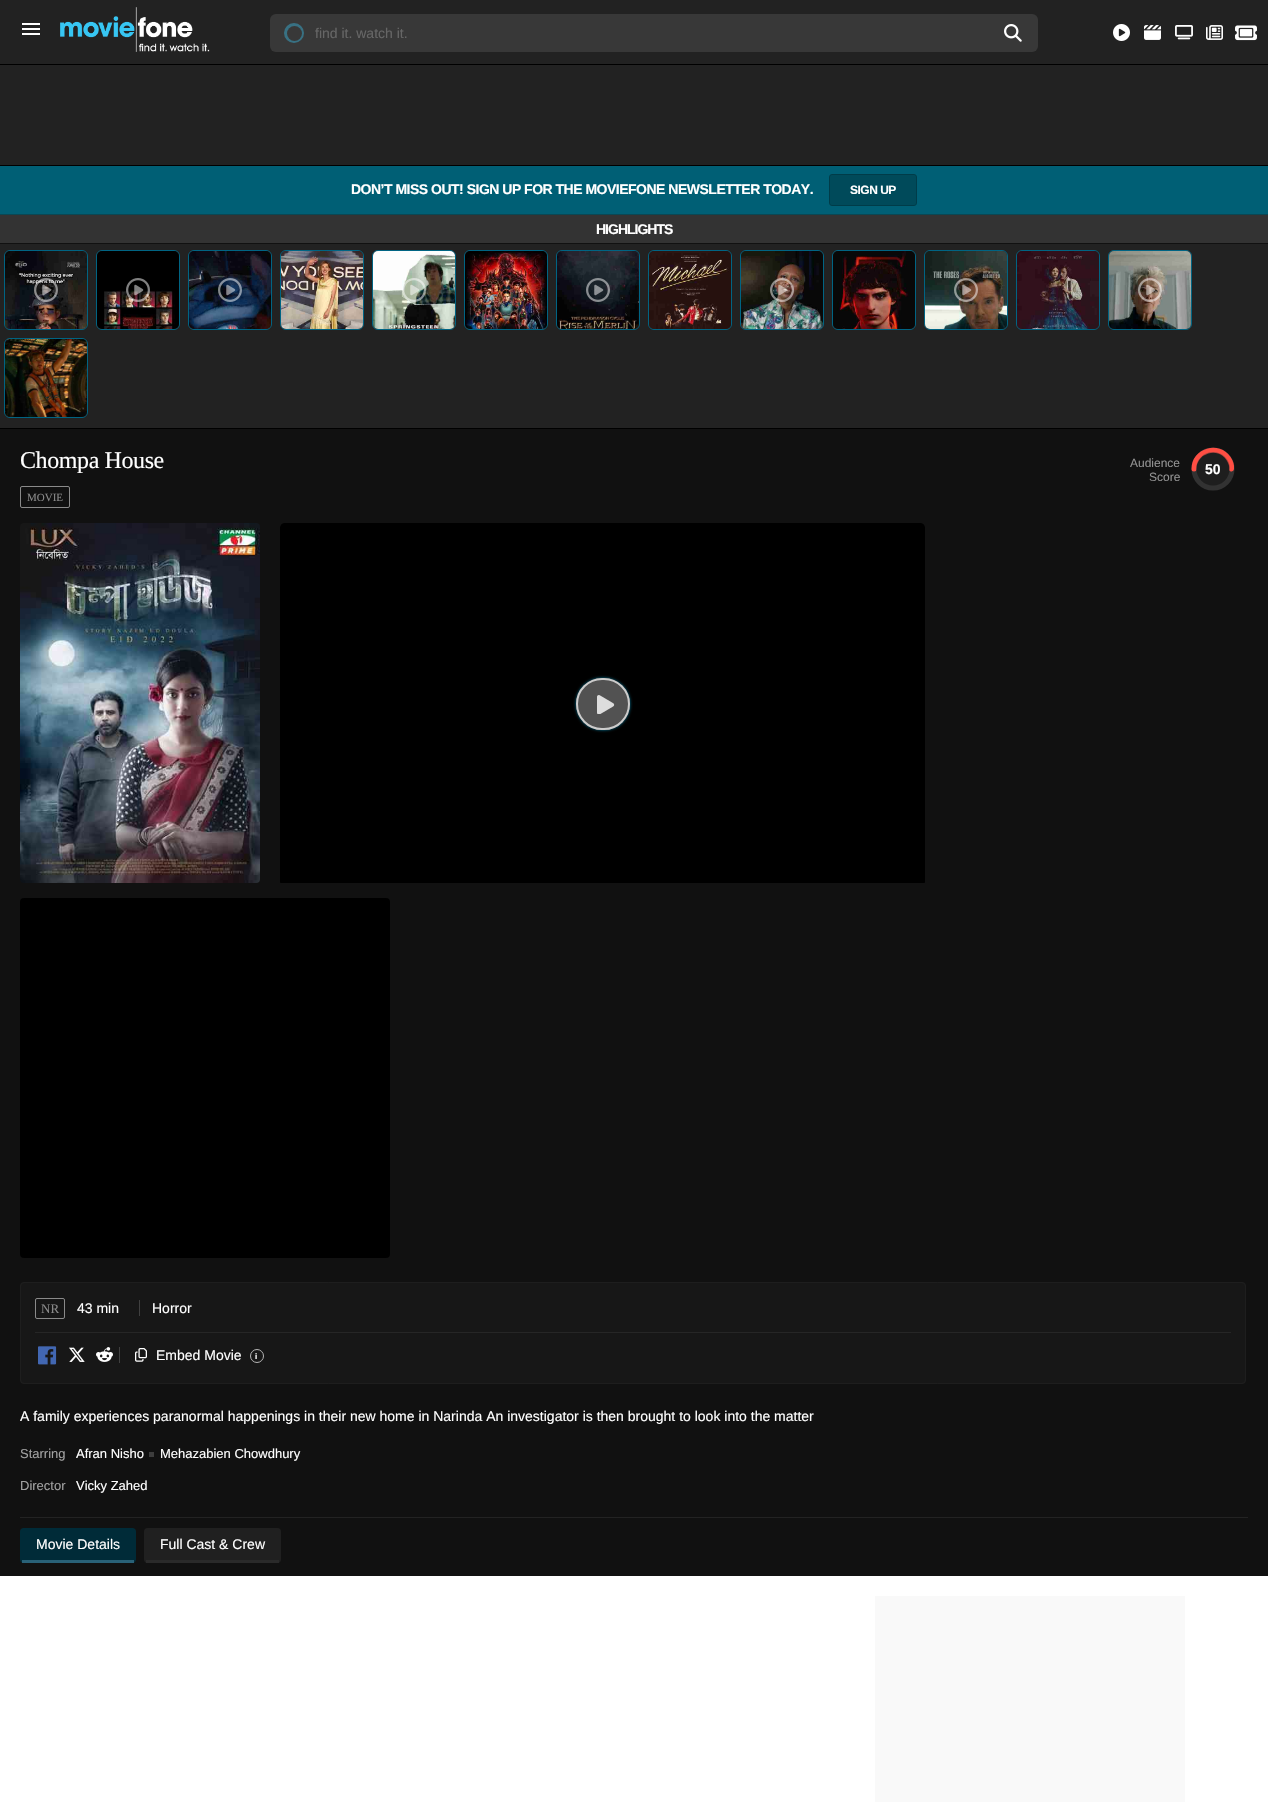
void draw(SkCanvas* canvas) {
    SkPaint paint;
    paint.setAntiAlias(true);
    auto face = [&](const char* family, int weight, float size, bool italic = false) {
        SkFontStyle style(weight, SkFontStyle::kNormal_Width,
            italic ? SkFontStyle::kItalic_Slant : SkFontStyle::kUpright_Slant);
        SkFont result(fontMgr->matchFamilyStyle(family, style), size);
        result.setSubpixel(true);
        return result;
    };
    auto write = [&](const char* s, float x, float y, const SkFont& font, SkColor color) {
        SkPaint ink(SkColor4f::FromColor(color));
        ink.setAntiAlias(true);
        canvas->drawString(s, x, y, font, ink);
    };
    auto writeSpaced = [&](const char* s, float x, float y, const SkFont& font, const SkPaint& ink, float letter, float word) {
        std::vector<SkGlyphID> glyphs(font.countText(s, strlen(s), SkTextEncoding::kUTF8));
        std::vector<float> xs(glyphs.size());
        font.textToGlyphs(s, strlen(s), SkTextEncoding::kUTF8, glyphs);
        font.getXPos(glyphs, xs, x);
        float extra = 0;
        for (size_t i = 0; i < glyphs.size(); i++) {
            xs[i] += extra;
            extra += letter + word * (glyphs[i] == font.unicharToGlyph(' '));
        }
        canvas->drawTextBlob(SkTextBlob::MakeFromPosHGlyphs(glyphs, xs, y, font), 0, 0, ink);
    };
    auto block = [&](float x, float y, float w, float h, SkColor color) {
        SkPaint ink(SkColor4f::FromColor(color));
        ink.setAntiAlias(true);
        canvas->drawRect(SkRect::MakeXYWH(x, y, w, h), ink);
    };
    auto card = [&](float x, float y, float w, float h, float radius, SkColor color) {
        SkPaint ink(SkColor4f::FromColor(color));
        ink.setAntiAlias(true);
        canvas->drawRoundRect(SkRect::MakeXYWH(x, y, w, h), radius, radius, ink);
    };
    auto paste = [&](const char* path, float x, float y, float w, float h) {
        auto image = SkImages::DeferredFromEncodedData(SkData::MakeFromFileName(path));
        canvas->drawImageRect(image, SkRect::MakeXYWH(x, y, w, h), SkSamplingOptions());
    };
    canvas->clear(SK_ColorWHITE);
    block(0, 0, 1268, 64, SkColorSetRGB(34, 34, 34));
    block(22, 28, 18, 2, SK_ColorWHITE);
    block(22, 23, 18, 2, SK_ColorWHITE);
    block(22, 33, 18, 2, SK_ColorWHITE);
    paste("pic1.png", 60, 7, 150, 45);
    card(270, 14, 768, 38, 6, SkColorSetRGB(56, 56, 56));
    paint.setColor(SkColorSetRGB(56, 113, 131));
    canvas->drawCircle(294, 33, 10, paint);
    paint.setColor(SkColorSetRGB(56, 56, 56));
    canvas->drawCircle(294.5f, 33.5f, 7.5f, paint);
    auto kFont1 = face("Liberation Sans", 400, 14);
    write("find it. watch it.", 315, 38, kFont1, SkColorSetRGB(102, 102, 102));
    paste("pic2.png", 1004, 24, 18, 18);
    paste("pic3.png", 1113, 24, 17, 17);
    paste("pic4.png", 1144, 25, 17, 15);
    paste("pic5.png", 1175, 25, 18, 15);
    paste("pic6.png", 1206, 25, 17, 15);
    paste("pic7.png", 1235, 25, 22, 16);
    block(0, 65, 1268, 100, SkColorSetRGB(34, 34, 34));
    block(0, 64, 1268, 1, SK_ColorBLACK);
    block(0, 165, 1268, 1, SK_ColorBLACK);
    block(0, 166, 1268, 48, SkColorSetRGB(0, 95, 117));
    block(0, 214, 1268, 1, SkColorSetRGB(10, 71, 83));
    auto kFont2 = face("Liberation Sans", 700, 14);
    paint.setColor(SK_ColorWHITE);
    writeSpaced("DON’T MISS OUT! SIGN UP FOR THE MOVIEFONE NEWSLETTER TODAY.", 351, 194, kFont2, paint, -0.5f, 0);
    paint.setColor(SkColorSetRGB(0, 74, 90));
    canvas->drawRoundRect(SkRect::MakeXYWH(829.5f, 174.5f, 87, 31), 2.5f, 2.5f, paint);
    paint.setStyle(SkPaint::kStroke_Style);
    paint.setStrokeWidth(1);
    paint.setColor(SkColorSetRGB(0, 60, 73));
    canvas->drawRoundRect(SkRect::MakeXYWH(829.5f, 174.5f, 87, 31), 2.5f, 2.5f, paint);
    auto kFont3 = face("Liberation Sans", 700, 12);
    paint.setStyle(SkPaint::kFill_Style);
    paint.setColor(SK_ColorWHITE);
    writeSpaced("SIGN UP", 850, 194, kFont3, paint, -0.5f, 0);
    block(0, 244, 1268, 184, SkColorSetRGB(34, 34, 34));
    block(0, 428, 1268, 1, SK_ColorBLACK);
    block(0, 215, 1268, 28, SkColorSetRGB(51, 51, 51));
    block(0, 243, 1268, 1, SkColorSetRGB(17, 17, 17));
    writeSpaced("HIGHLIGHTS", 596, 234, kFont2, paint, -1, 0);
    paint.setStyle(SkPaint::kStroke_Style);
    paint.setColor(SkColorSetRGB(0, 100, 131));
    canvas->drawRoundRect(SkRect::MakeXYWH(4.5f, 250.5f, 83, 79), 5.5f, 5.5f, paint);
    paste("pic8.png", 5, 251, 82, 78);
    paste("pic9.png", 34, 278, 24, 24);
    canvas->drawRoundRect(SkRect::MakeXYWH(96.5f, 250.5f, 83, 79), 5.5f, 5.5f, paint);
    paste("pic10.png", 97, 251, 82, 78);
    paste("pic11.png", 126, 278, 24, 24);
    canvas->drawRoundRect(SkRect::MakeXYWH(188.5f, 250.5f, 83, 79), 5.5f, 5.5f, paint);
    paste("pic12.png", 189, 251, 82, 78);
    paste("pic13.png", 218, 278, 24, 24);
    canvas->drawRoundRect(SkRect::MakeXYWH(280.5f, 250.5f, 83, 79), 5.5f, 5.5f, paint);
    paste("pic14.png", 281, 251, 82, 78);
    canvas->drawRoundRect(SkRect::MakeXYWH(372.5f, 250.5f, 83, 79), 5.5f, 5.5f, paint);
    paste("pic15.png", 373, 251, 82, 78);
    paste("pic16.png", 402, 278, 24, 24);
    canvas->drawRoundRect(SkRect::MakeXYWH(464.5f, 250.5f, 83, 79), 5.5f, 5.5f, paint);
    paste("pic17.png", 465, 251, 82, 78);
    canvas->drawRoundRect(SkRect::MakeXYWH(556.5f, 250.5f, 83, 79), 5.5f, 5.5f, paint);
    paste("pic18.png", 557, 251, 82, 78);
    paste("pic19.png", 586, 278, 24, 24);
    canvas->drawRoundRect(SkRect::MakeXYWH(648.5f, 250.5f, 83, 79), 5.5f, 5.5f, paint);
    paste("pic20.png", 649, 251, 82, 78);
    canvas->drawRoundRect(SkRect::MakeXYWH(740.5f, 250.5f, 83, 79), 5.5f, 5.5f, paint);
    paste("pic21.png", 741, 251, 82, 78);
    paste("pic22.png", 770, 278, 24, 24);
    canvas->drawRoundRect(SkRect::MakeXYWH(832.5f, 250.5f, 83, 79), 5.5f, 5.5f, paint);
    paste("pic23.png", 833, 251, 82, 78);
    canvas->drawRoundRect(SkRect::MakeXYWH(924.5f, 250.5f, 83, 79), 5.5f, 5.5f, paint);
    paste("pic24.png", 925, 251, 82, 78);
    paste("pic25.png", 954, 278, 24, 24);
    canvas->drawRoundRect(SkRect::MakeXYWH(1016.5f, 250.5f, 83, 79), 5.5f, 5.5f, paint);
    paste("pic26.png", 1017, 251, 82, 78);
    canvas->drawRoundRect(SkRect::MakeXYWH(1108.5f, 250.5f, 83, 79), 5.5f, 5.5f, paint);
    paste("pic27.png", 1109, 251, 82, 78);
    paste("pic28.png", 1138, 278, 24, 24);
    canvas->drawRoundRect(SkRect::MakeXYWH(4.5f, 338.5f, 83, 79), 5.5f, 5.5f, paint);
    paste("pic29.png", 5, 339, 82, 78);
    block(0, 429, 1268, 1147, SkColorSetRGB(17, 17, 17));
    auto kFont4 = face("Liberation Serif", 400, 24);
    paint.setStyle(SkPaint::kFill_Style);
    paint.setColor(SK_ColorWHITE);
    writeSpaced("Chompa House", 20, 468, kFont4, paint, -0.4f, 0);
    paint.setStyle(SkPaint::kStroke_Style);
    paint.setColor(SkColorSetRGB(138, 138, 138));
    canvas->drawRoundRect(SkRect::MakeXYWH(20.5f, 486.5f, 49, 21), 1.5f, 1.5f, paint);
    auto kFont5 = face("Liberation Serif", 400, 11);
    write("MOVIE", 27, 501, kFont5, SkColorSetRGB(138, 138, 138));
    auto kFont6 = face("Liberation Sans", 400, 12);
    write("Audience", 1130, 467, kFont6, SkColorSetRGB(146, 146, 146));
    write("Score", 1149, 481, kFont6, SkColorSetRGB(146, 146, 146));
    paint.setStrokeWidth(5);
    paint.setStrokeCap(SkPaint::kRound_Cap);
    paint.setColor(SkColorSetRGB(50, 50, 50));
    canvas->drawPath(SkPathBuilder().moveTo(1194, 469).cubicTo(1194, 458.5f, 1202.5f, 450, 1213, 450).cubicTo(1223.5f, 450, 1232, 458.5f, 1232, 469).cubicTo(1232, 479.5f, 1223.5f, 488, 1213, 488).cubicTo(1202.5f, 488, 1194, 479.5f, 1194, 469).close().detach(), paint);
    paint.setColor(SkColorSetRGB(255, 78, 67));
    canvas->drawPath(SkPathBuilder().moveTo(1194, 469).cubicTo(1194, 450.5f, 1218.5f, 443.5f, 1228.5f, 458.5f).cubicTo(1230.5f, 461.5f, 1232, 465.5f, 1231.5f, 469).detach(), paint);
    paint.setStyle(SkPaint::kFill_Style);
    paint.setColor(SkColorSetARGB(102, 48, 48, 48));
    canvas->drawCircle(1213, 469, 17, paint);
    write("50", 1205, 474, kFont2, SK_ColorWHITE);
    paste("pic30.png", 20, 523, 240, 360);
    canvas->save();
    canvas->clipPath(SkPathBuilder().moveTo(284, 523).lineTo(921, 523).cubicTo(923, 523, 925, 525, 925, 527).lineTo(925, 882).cubicTo(925, 884, 923, 886, 921, 886).lineTo(284, 886).cubicTo(282, 886, 280, 884, 280, 882).lineTo(280, 527).cubicTo(280, 525, 282, 523, 284, 523).close().detach(), true);
    paint.setColor(SK_ColorBLACK);
    canvas->drawPath(SkPathBuilder().moveTo(284, 523).lineTo(921, 523).cubicTo(923, 523, 925, 525, 925, 527).lineTo(925, 883).lineTo(280, 883).lineTo(280, 527).cubicTo(280, 525, 282, 523, 284, 523).close().detach(), paint);
    canvas->restore();
    canvas->save();
    canvas->clipPath(SkPathBuilder(SkPathFillType::kEvenOdd).moveTo(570, 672).lineTo(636, 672).lineTo(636, 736).lineTo(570, 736).close().moveTo(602, 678).lineTo(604, 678).cubicTo(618.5f, 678, 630, 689.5f, 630, 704).cubicTo(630, 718.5f, 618.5f, 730, 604, 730).lineTo(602, 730).cubicTo(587.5f, 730, 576, 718.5f, 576, 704).cubicTo(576, 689.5f, 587.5f, 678, 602, 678).close().detach(), true);
    paint.setColor(SkColorSetRGB(6, 129, 166));
    paint.setMaskFilter(SkMaskFilter::MakeBlur(kNormal_SkBlurStyle, 1.5f));
    canvas->drawRoundRect(SkRect::MakeXYWH(576, 678, 54, 52), 26, 26, paint);
    paint.setMaskFilter(nullptr);
    canvas->restore();
    card(576, 678, 54, 52, 26, SkColorSetARGB(102, 204, 204, 204));
    paste("pic31.png", 597, 695, 18, 19);
    paint.setStyle(SkPaint::kStroke_Style);
    paint.setStrokeWidth(2);
    paint.setStrokeCap(SkPaint::kButt_Cap);
    paint.setColor(SkColorSetRGB(204, 204, 204));
    canvas->drawRoundRect(SkRect::MakeXYWH(577, 679, 52, 50), 25, 25, paint);
    card(20, 898, 370, 360, 4, SK_ColorBLACK);
    paint.setStyle(SkPaint::kFill_Style);
    paint.setColor(SkColorSetRGB(23, 23, 23));
    canvas->drawRoundRect(SkRect::MakeXYWH(20.5f, 1282.5f, 1225, 101), 3.5f, 3.5f, paint);
    paint.setStyle(SkPaint::kStroke_Style);
    paint.setStrokeWidth(1);
    paint.setColor(SkColorSetRGB(30, 30, 30));
    canvas->drawRoundRect(SkRect::MakeXYWH(20.5f, 1282.5f, 1225, 101), 3.5f, 3.5f, paint);
    paint.setColor(SkColorSetRGB(138, 138, 138));
    canvas->drawRoundRect(SkRect::MakeXYWH(35.5f, 1298.5f, 29, 20), 1.5f, 1.5f, paint);
    auto kFont7 = face("Liberation Serif", 400, 13);
    write("NR", 41, 1313, kFont7, SkColorSetRGB(138, 138, 138));
    write("43 min", 77, 1313, kFont1, SK_ColorWHITE);
    write("Horror", 152, 1313, kFont1, SK_ColorWHITE);
    block(139, 1300, 1, 16, SkColorSetRGB(64, 64, 64));
    block(35, 1332, 1196, 1, SkColorSetRGB(38, 38, 38));
    paste("pic32.png", 38, 1346, 19, 19);
    paste("pic33.png", 69, 1347, 16, 15);
    paste("pic34.png", 96, 1347, 17, 15);
    paste("pic35.png", 135, 1348, 12, 14);
    block(119, 1347, 1, 16, SkColorSetRGB(64, 64, 64));
    write("Embed Movie", 156, 1360, kFont1, SK_ColorWHITE);
    paint.setColor(SkColorSetRGB(180, 180, 180));
    canvas->drawCircle(257, 1356, 6.5f, paint);
    auto kFont8 = face("Liberation Sans", 700, 8);
    write("i", 255, 1359, kFont8, SK_ColorWHITE);
    write("A family experiences paranormal happenings in their new home in Narinda An investigator is then brought to look into the matter", 20, 1421, kFont1, SK_ColorWHITE);
    auto kFont9 = face("Liberation Sans", 400, 13);
    write("Starring", 20, 1458, kFont9, SkColorSetRGB(161, 161, 161));
    write("Afran Nisho", 76, 1458, kFont9, SK_ColorWHITE);
    block(149, 1452, 5, 5, SkColorSetRGB(61, 61, 61));
    write("Mehazabien Chowdhury", 160, 1458, kFont9, SK_ColorWHITE);
    write("Director", 20, 1490, kFont9, SkColorSetRGB(161, 161, 161));
    write("Vicky Zahed", 76, 1490, kFont9, SK_ColorWHITE);
    block(20, 1517, 1228, 1, SkColorSetRGB(35, 35, 35));
    card(20, 1528, 116, 35, 4, SkColorSetRGB(0, 43, 56));
    block(22, 1560, 112, 3, SkColorSetRGB(41, 97, 119));
    write("Movie Details", 36, 1549, kFont1, SK_ColorWHITE);
    card(144, 1528, 137, 35, 4, SkColorSetRGB(32, 32, 32));
    block(146, 1560, 133, 3, SkColorSetRGB(42, 42, 42));
    write("Full Cast & Crew", 160, 1549, kFont1, SK_ColorWHITE);
    block(875, 1596, 310, 206, SkColorSetRGB(249, 249, 249));
}
